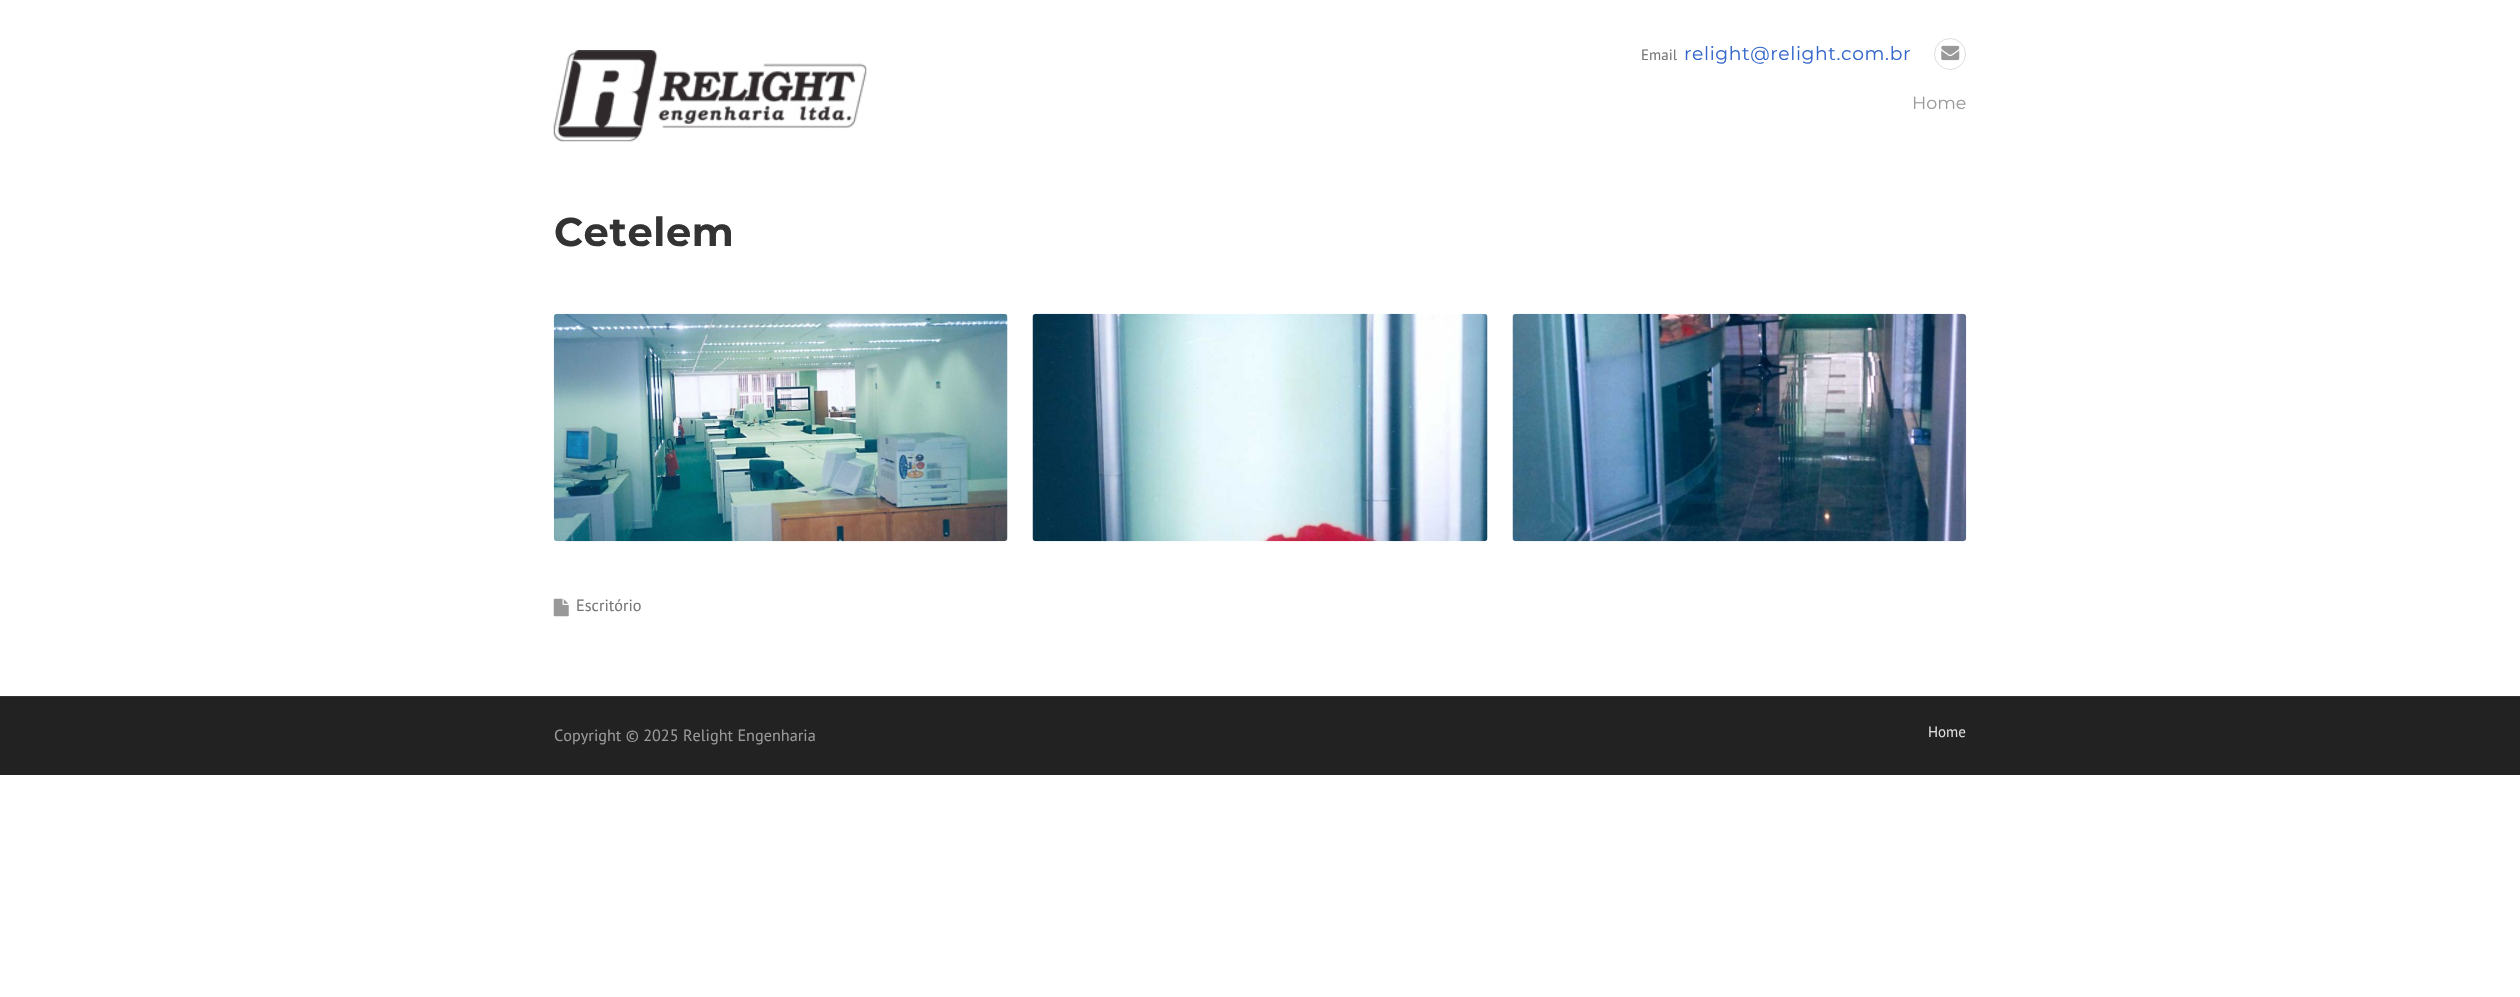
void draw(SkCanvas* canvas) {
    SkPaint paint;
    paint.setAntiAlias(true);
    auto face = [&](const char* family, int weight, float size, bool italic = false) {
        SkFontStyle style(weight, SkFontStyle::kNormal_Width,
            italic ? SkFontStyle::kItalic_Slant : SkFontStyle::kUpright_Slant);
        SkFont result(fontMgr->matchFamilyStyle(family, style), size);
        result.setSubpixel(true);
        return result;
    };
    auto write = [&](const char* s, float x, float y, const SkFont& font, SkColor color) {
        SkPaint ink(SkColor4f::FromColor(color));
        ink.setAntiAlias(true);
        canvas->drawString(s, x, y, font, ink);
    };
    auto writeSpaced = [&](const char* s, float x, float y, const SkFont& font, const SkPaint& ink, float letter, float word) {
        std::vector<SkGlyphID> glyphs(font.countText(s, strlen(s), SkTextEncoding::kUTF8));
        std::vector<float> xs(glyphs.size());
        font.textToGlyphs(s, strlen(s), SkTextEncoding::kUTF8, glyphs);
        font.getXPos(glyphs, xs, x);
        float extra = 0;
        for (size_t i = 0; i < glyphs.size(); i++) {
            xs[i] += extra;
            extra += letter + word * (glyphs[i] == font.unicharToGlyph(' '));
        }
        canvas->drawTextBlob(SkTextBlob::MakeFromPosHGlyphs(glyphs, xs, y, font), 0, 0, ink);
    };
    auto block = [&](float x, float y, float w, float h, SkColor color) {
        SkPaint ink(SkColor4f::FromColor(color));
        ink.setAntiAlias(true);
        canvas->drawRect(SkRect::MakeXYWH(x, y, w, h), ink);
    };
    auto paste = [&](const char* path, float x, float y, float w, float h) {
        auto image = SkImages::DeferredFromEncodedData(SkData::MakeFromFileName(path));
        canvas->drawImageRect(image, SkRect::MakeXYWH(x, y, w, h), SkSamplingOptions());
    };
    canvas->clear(SK_ColorWHITE);
    paste("pic1.png", 553, 50, 314, 92);
    auto kFont1 = face("PT Sans", 400, 15);
    write("Email", 1641, 60, kFont1, SkColorSetRGB(119, 119, 119));
    auto kFont2 = face("Montserrat", 400, 18.75f);
    paint.setColor(SkColorSetRGB(51, 102, 204));
    writeSpaced("relight@relight.com.br", 1684, 60, kFont2, paint, 0.6f, 0);
    paint.setStyle(SkPaint::kStroke_Style);
    paint.setStrokeWidth(1);
    paint.setColor(SkColorSetRGB(221, 221, 221));
    canvas->drawCircle(1950, 54, 15.5f, paint);
    paste("pic2.png", 1941, 45, 19, 16);
    auto kFont3 = face("Montserrat", 400, 17.5f);
    write("Home", 1912, 109, kFont3, SkColorSetRGB(153, 153, 153));
    auto kFont4 = face("Montserrat", 700, 40);
    paint.setStyle(SkPaint::kFill_Style);
    paint.setColor(SkColorSetRGB(51, 51, 51));
    writeSpaced("Cetelem", 554, 246, kFont4, paint, 0.6f, 0);
    paste("pic3.png", 553, 313, 455, 229);
    paste("pic4.png", 1032, 313, 456, 229);
    paste("pic5.png", 1512, 313, 455, 229);
    paste("pic6.png", 553, 598, 16, 19);
    auto kFont5 = face("PT Sans", 400, 16.25f);
    write("Escritório", 576, 611, kFont5, SkColorSetRGB(119, 119, 119));
    block(0, 697, 2520, 78, SkColorSetRGB(34, 34, 34));
    block(0, 696, 2520, 1, SkColorSetRGB(51, 51, 51));
    write("Copyright © 2025 Relight Engenharia", 554, 741, kFont5, SkColorSetRGB(153, 153, 153));
    write("Home", 1928, 737, kFont1, SkColorSetRGB(221, 221, 221));
}
